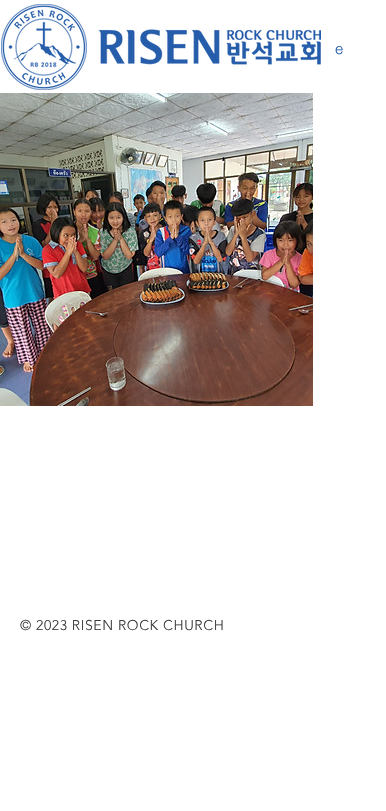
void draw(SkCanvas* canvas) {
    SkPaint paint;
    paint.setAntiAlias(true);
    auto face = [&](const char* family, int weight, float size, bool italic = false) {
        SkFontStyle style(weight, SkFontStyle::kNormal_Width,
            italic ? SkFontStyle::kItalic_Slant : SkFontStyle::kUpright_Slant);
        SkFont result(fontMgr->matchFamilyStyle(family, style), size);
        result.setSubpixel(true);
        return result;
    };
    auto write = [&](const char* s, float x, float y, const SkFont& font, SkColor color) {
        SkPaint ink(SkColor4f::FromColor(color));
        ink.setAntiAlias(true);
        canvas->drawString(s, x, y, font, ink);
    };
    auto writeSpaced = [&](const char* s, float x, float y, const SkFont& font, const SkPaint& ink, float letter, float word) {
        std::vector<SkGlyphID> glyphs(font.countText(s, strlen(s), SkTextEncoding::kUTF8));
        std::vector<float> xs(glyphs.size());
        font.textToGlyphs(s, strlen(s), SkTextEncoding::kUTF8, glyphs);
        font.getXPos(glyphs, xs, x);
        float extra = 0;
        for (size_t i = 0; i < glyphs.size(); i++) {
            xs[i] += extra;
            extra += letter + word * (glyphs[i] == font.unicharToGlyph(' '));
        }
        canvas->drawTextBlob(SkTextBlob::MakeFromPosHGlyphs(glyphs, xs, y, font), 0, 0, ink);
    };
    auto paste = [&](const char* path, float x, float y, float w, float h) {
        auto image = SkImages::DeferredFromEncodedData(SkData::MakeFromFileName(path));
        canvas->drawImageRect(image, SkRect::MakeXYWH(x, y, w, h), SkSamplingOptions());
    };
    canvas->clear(SK_ColorWHITE);
    paste("pic1.png", 1, 4, 320, 86);
    auto kFont1 = face("helvetica", 300, 15);
    write("e", 335, 54, kFont1, SkColorSetRGB(38, 92, 171));
    paste("pic2.png", 0, 93, 313, 313);
    auto kFont2 = face("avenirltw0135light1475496", 300, 14);
    paint.setColor(SkColorSetRGB(59, 58, 58));
    writeSpaced("© 2023 RISEN ROCK CHURCH", 20, 630, kFont2, paint, 0.6f, 0);
}
